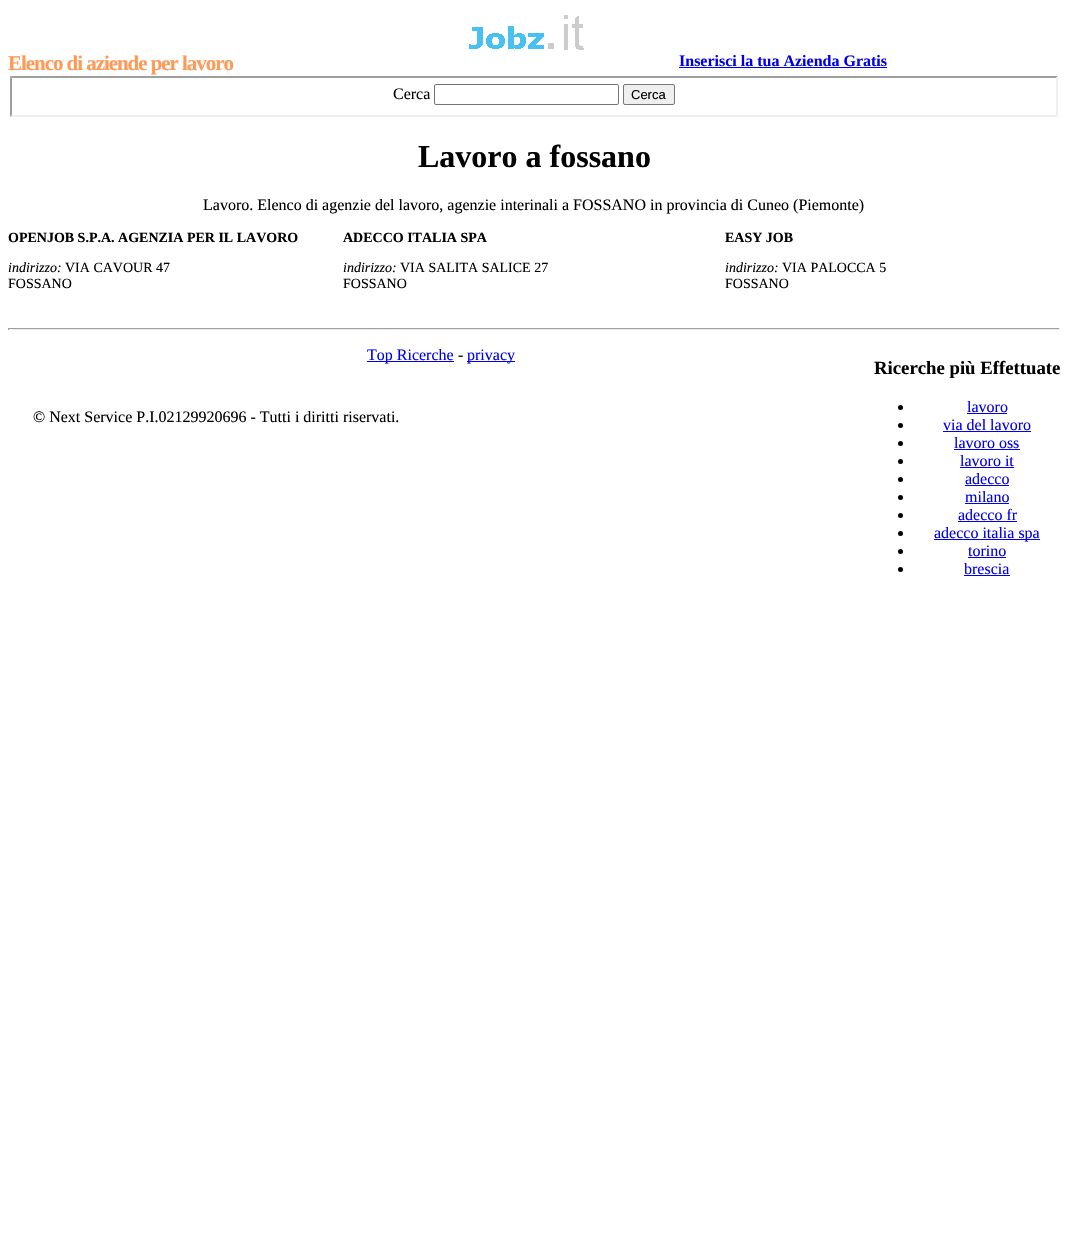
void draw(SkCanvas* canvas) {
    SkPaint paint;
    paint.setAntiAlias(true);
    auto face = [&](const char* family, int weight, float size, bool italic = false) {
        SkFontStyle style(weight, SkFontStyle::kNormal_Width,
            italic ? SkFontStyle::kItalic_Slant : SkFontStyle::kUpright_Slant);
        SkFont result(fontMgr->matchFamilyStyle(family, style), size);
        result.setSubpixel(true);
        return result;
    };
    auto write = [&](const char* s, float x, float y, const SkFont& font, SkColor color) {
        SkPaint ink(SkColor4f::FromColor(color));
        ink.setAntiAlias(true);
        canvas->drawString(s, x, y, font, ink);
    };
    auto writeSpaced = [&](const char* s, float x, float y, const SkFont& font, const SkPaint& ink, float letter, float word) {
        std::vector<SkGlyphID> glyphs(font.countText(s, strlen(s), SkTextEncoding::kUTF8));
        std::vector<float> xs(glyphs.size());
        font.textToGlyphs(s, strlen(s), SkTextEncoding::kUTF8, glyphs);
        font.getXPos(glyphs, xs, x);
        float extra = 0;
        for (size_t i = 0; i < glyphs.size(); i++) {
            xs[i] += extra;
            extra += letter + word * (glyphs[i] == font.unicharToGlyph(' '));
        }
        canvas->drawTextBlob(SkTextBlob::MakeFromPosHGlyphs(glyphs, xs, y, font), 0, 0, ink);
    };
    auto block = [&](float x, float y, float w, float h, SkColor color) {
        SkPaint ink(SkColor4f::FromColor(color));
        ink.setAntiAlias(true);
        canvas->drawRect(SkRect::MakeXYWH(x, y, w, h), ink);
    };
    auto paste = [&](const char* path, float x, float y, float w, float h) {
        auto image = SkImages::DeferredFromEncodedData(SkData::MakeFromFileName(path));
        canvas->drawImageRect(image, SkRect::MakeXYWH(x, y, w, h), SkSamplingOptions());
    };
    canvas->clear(SK_ColorWHITE);
    paste("pic1.png", 469, 15, 115, 35);
    auto kFont1 = face("Liberation Serif", 700, 21);
    paint.setColor(SkColorSetRGB(255, 153, 85));
    writeSpaced("Elenco di aziende per lavoro", 8, 70, kFont1, paint, -1.05f, 0);
    auto kFont2 = face("Liberation Serif", 700, 16);
    write("Inserisci la tua Azienda Gratis", 679, 66, kFont2, SkColorSetRGB(0, 0, 238));
    block(679, 67, 208, 1, SkColorSetRGB(0, 0, 238));
    paint.setColor(SkColorSetRGB(159, 159, 159));
    canvas->drawPath(SkPathBuilder().moveTo(10, 76).lineTo(1058, 76).lineTo(1056, 78).lineTo(12, 78).close().detach(), paint);
    paint.setColor(SkColorSetRGB(239, 239, 239));
    canvas->drawPath(SkPathBuilder().moveTo(1058, 76).lineTo(1058, 117).lineTo(1056, 115).lineTo(1056, 78).close().detach(), paint);
    canvas->drawPath(SkPathBuilder().moveTo(1058, 117).lineTo(10, 117).lineTo(12, 115).lineTo(1056, 115).close().detach(), paint);
    paint.setColor(SkColorSetRGB(159, 159, 159));
    canvas->drawPath(SkPathBuilder().moveTo(10, 117).lineTo(10, 76).lineTo(12, 78).lineTo(12, 115).close().detach(), paint);
    auto kFont3 = face("Liberation Serif", 400, 16);
    write("Cerca", 393, 99, kFont3, SK_ColorBLACK);
    paint.setStyle(SkPaint::kStroke_Style);
    paint.setStrokeWidth(1);
    paint.setColor(SkColorSetRGB(118, 118, 118));
    canvas->drawRoundRect(SkRect::MakeXYWH(434.5f, 84.5f, 184, 20), 1.5f, 1.5f, paint);
    paint.setStyle(SkPaint::kFill_Style);
    paint.setColor(SkColorSetRGB(239, 239, 239));
    canvas->drawRoundRect(SkRect::MakeXYWH(623.5f, 84.5f, 51, 20), 1.5f, 1.5f, paint);
    paint.setStyle(SkPaint::kStroke_Style);
    paint.setColor(SkColorSetRGB(118, 118, 118));
    canvas->drawRoundRect(SkRect::MakeXYWH(623.5f, 84.5f, 51, 20), 1.5f, 1.5f, paint);
    auto kFont4 = face("Liberation Sans", 400, 13);
    write("Cerca", 631, 99, kFont4, SK_ColorBLACK);
    auto kFont5 = face("Liberation Serif", 700, 32);
    write("Lavoro a fossano", 418, 167, kFont5, SK_ColorBLACK);
    write("Lavoro. Elenco di agenzie del lavoro, agenzie interinali a FOSSANO in provincia di Cuneo (Piemonte)", 203, 210, kFont3, SK_ColorBLACK);
    auto kFont6 = face("Liberation Serif", 700, 14);
    write("OPENJOB S.P.A. AGENZIA PER IL LAVORO", 8, 242, kFont6, SK_ColorBLACK);
    auto kFont7 = face("Liberation Serif", 400, 14, true);
    write("indirizzo:", 8, 272, kFont7, SK_ColorBLACK);
    auto kFont8 = face("Liberation Serif", 400, 14);
    write("VIA CAVOUR 47", 65, 272, kFont8, SK_ColorBLACK);
    write("FOSSANO", 8, 288, kFont8, SK_ColorBLACK);
    write("ADECCO ITALIA SPA", 343, 242, kFont6, SK_ColorBLACK);
    write("indirizzo:", 343, 272, kFont7, SK_ColorBLACK);
    write("VIA SALITA SALICE 27", 400, 272, kFont8, SK_ColorBLACK);
    write("FOSSANO", 343, 288, kFont8, SK_ColorBLACK);
    write("EASY JOB", 725, 242, kFont6, SK_ColorBLACK);
    write("indirizzo:", 725, 272, kFont7, SK_ColorBLACK);
    write("VIA PALOCCA 5", 782, 272, kFont8, SK_ColorBLACK);
    write("FOSSANO", 725, 288, kFont8, SK_ColorBLACK);
    block(8, 328, 1052, 1, SkColorSetRGB(159, 159, 159));
    block(1059, 328, 1, 2, SkColorSetRGB(238, 238, 238));
    block(8, 329, 1052, 1, SkColorSetRGB(238, 238, 238));
    block(8, 328, 1, 2, SkColorSetRGB(159, 159, 159));
    auto kFont9 = face("Liberation Serif", 700, 18.75f);
    write("Ricerche più Effettuate", 874, 374, kFont9, SK_ColorBLACK);
    paint.setStyle(SkPaint::kFill_Style);
    paint.setColor(SK_ColorBLACK);
    canvas->drawCircle(900.5f, 407.5f, 2.5f, paint);
    write("lavoro", 967, 412, kFont3, SkColorSetRGB(0, 0, 238));
    block(967, 413, 40, 1, SkColorSetRGB(0, 0, 238));
    canvas->drawCircle(900.5f, 425.5f, 2.5f, paint);
    write("via del lavoro", 943, 430, kFont3, SkColorSetRGB(0, 0, 238));
    block(943, 431, 88, 1, SkColorSetRGB(0, 0, 238));
    canvas->drawCircle(900.5f, 443.5f, 2.5f, paint);
    write("lavoro oss", 954, 448, kFont3, SkColorSetRGB(0, 0, 238));
    block(954, 449, 66, 1, SkColorSetRGB(0, 0, 238));
    canvas->drawCircle(900.5f, 461.5f, 2.5f, paint);
    write("lavoro it", 960, 466, kFont3, SkColorSetRGB(0, 0, 238));
    block(960, 467, 54, 1, SkColorSetRGB(0, 0, 238));
    canvas->drawCircle(900.5f, 479.5f, 2.5f, paint);
    write("adecco", 965, 484, kFont3, SkColorSetRGB(0, 0, 238));
    block(965, 485, 44, 1, SkColorSetRGB(0, 0, 238));
    canvas->drawCircle(900.5f, 497.5f, 2.5f, paint);
    write("milano", 965, 502, kFont3, SkColorSetRGB(0, 0, 238));
    block(965, 503, 44, 1, SkColorSetRGB(0, 0, 238));
    canvas->drawCircle(900.5f, 515.5f, 2.5f, paint);
    write("adecco fr", 958, 520, kFont3, SkColorSetRGB(0, 0, 238));
    block(958, 521, 59, 1, SkColorSetRGB(0, 0, 238));
    canvas->drawCircle(900.5f, 533.5f, 2.5f, paint);
    block(934, 539, 106, 1, SkColorSetRGB(0, 0, 238));
    write("adecco italia spa", 934, 538, kFont3, SkColorSetRGB(0, 0, 238));
    canvas->drawCircle(900.5f, 551.5f, 2.5f, paint);
    write("torino", 968, 556, kFont3, SkColorSetRGB(0, 0, 238));
    block(968, 557, 38, 1, SkColorSetRGB(0, 0, 238));
    canvas->drawCircle(900.5f, 569.5f, 2.5f, paint);
    write("brescia", 964, 574, kFont3, SkColorSetRGB(0, 0, 238));
    block(964, 575, 46, 1, SkColorSetRGB(0, 0, 238));
    block(367, 361, 87, 1, SkColorSetRGB(0, 0, 238));
    write("Top Ricerche", 367, 360, kFont3, SkColorSetRGB(0, 0, 238));
    write("-", 458, 360, kFont3, SK_ColorBLACK);
    block(467, 361, 48, 1, SkColorSetRGB(0, 0, 238));
    write("privacy", 467, 360, kFont3, SkColorSetRGB(0, 0, 238));
    write("© Next Service P.I.02129920696 - Tutti i diritti riservati.", 33, 422, kFont3, SK_ColorBLACK);
}
